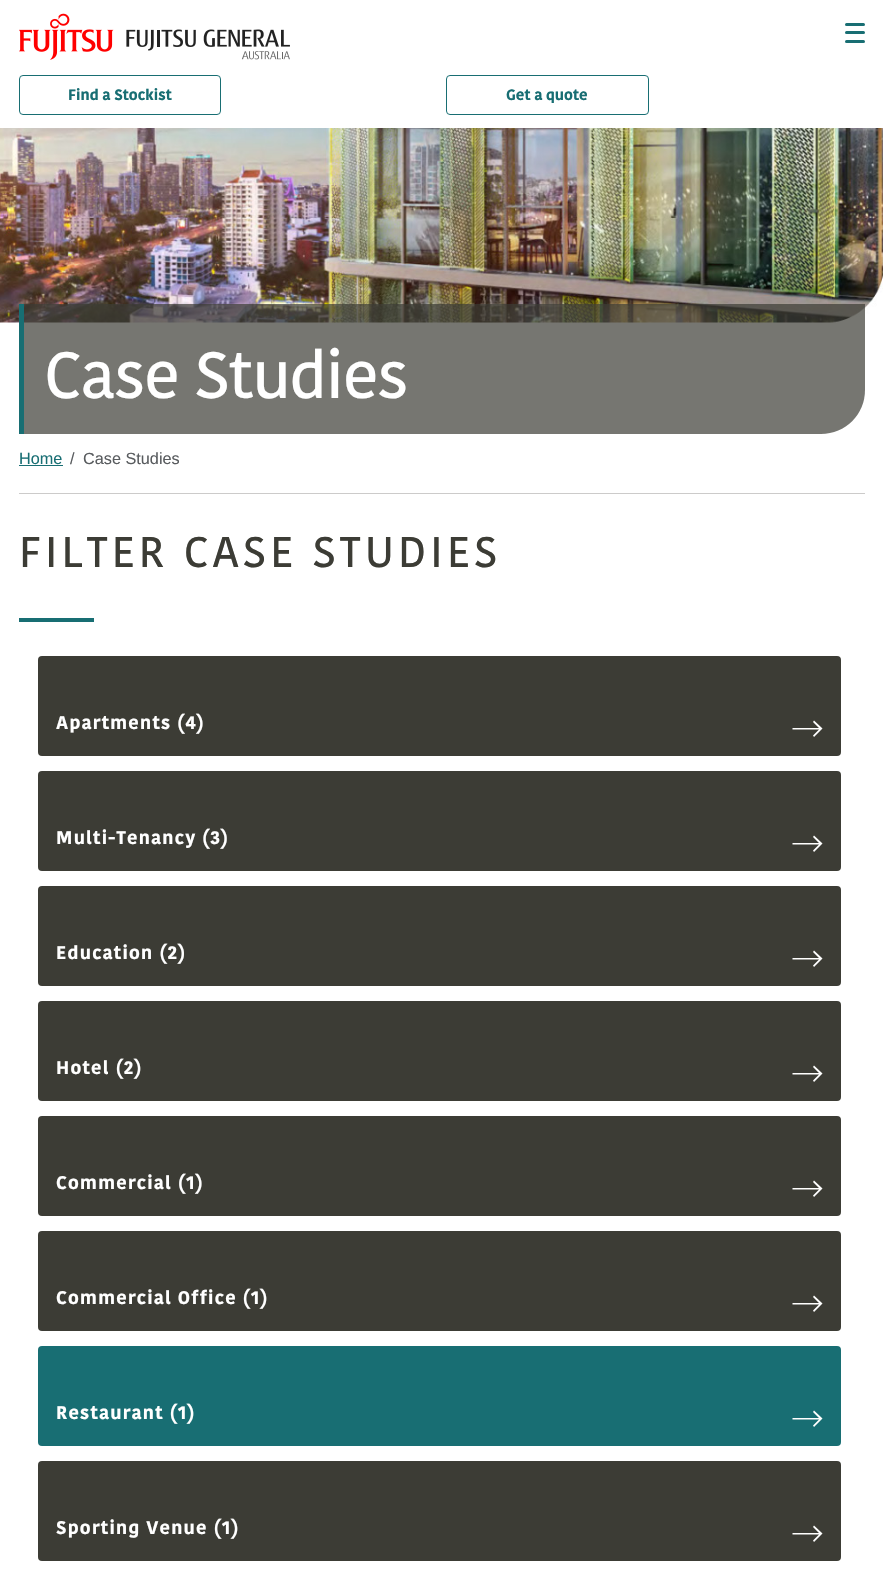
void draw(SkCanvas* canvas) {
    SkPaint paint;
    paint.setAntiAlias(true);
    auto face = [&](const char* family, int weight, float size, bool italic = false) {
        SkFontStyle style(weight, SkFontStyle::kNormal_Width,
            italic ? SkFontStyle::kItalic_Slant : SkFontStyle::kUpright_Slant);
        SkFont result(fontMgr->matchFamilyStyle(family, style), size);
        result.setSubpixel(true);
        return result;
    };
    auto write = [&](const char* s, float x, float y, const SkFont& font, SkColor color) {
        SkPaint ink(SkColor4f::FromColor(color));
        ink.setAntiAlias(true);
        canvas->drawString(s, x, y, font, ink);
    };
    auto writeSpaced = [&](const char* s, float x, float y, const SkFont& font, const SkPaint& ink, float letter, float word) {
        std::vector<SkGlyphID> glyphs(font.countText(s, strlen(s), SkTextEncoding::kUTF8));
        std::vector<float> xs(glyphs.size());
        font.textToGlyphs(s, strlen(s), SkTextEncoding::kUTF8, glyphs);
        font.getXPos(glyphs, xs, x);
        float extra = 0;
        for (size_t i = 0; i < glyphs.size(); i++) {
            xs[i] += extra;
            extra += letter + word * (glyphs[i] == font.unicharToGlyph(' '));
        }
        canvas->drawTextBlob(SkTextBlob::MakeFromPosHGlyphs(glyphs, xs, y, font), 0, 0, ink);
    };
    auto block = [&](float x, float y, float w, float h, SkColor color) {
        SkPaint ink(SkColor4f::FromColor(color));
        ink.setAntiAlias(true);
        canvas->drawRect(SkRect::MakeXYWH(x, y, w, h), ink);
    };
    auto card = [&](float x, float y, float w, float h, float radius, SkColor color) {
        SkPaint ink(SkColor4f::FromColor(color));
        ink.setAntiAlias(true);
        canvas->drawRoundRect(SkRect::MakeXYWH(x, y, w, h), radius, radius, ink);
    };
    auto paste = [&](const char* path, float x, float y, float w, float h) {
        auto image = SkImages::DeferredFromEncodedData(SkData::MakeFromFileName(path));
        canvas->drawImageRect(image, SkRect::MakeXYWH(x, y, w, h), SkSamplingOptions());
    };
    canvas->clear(SK_ColorWHITE);
    paste("pic1.png", 19, 13, 271, 47);
    card(845, 23, 20, 3, 1.5f, SkColorSetRGB(24, 110, 115));
    card(845, 31, 20, 3, 1.5f, SkColorSetRGB(24, 110, 115));
    card(845, 40, 20, 3, 1.5f, SkColorSetRGB(24, 110, 115));
    paint.setStyle(SkPaint::kStroke_Style);
    paint.setStrokeWidth(1);
    paint.setColor(SkColorSetRGB(24, 110, 115));
    canvas->drawRoundRect(SkRect::MakeXYWH(19.5f, 75.5f, 201, 39), 3.5f, 3.5f, paint);
    auto kFont1 = face("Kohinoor", 700, 15);
    write("Find a Stockist", 68, 100, kFont1, SkColorSetRGB(24, 110, 115));
    canvas->drawRoundRect(SkRect::MakeXYWH(446.5f, 75.5f, 202, 39), 3.5f, 3.5f, paint);
    write("Get a quote", 506, 100, kFont1, SkColorSetRGB(24, 110, 115));
    paste("pic2.png", 0, 128, 883, 195);
    paint.setStyle(SkPaint::kFill_Style);
    paint.setColor(SkColorSetARGB(179, 60, 60, 53));
    canvas->drawPath(SkPathBuilder().moveTo(19, 304).lineTo(865, 304).lineTo(865, 390).cubicTo(865, 414.5f, 845.5f, 434, 821, 434).lineTo(19, 434).close().detach(), paint);
    block(19, 304, 5, 130, SkColorSetRGB(24, 110, 115));
    auto kFont2 = face("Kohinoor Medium", 500, 65);
    paint.setColor(SK_ColorWHITE);
    writeSpaced("Case Studies", 44, 398, kFont2, paint, -1.25f, 0);
    auto kFont3 = face("Liberation Sans", 400, 16.25f);
    write("Home", 19, 464, kFont3, SkColorSetRGB(24, 110, 115));
    block(19, 465, 44, 1, SkColorSetRGB(24, 110, 115));
    write("/", 70, 464, kFont3, SkColorSetRGB(89, 92, 95));
    write("Case Studies", 83, 464, kFont3, SkColorSetRGB(89, 92, 95));
    block(19, 493, 846, 1, SkColorSetRGB(204, 203, 202));
    auto kFont4 = face("Kohinoor Medium", 500, 42.7f);
    paint.setColor(SkColorSetRGB(60, 60, 53));
    writeSpaced("FILTER CASE STUDIES", 19, 567, kFont4, paint, 4.1f, 0);
    block(19, 618, 75, 4, SkColorSetRGB(24, 110, 115));
    card(38, 656, 803, 100, 4, SkColorSetRGB(60, 60, 53));
    auto kFont5 = face("Kohinoor", 700, 18.25f);
    paint.setColor(SK_ColorWHITE);
    writeSpaced("Apartments (4)", 56, 729, kFont5, paint, 1.25f, 0);
    canvas->drawPath(SkPathBuilder(SkPathFillType::kEvenOdd).moveTo(814, 720.5f).lineTo(813, 722).lineTo(819, 728).lineTo(792.5f, 728).lineTo(792.5f, 729.5f).lineTo(819, 729.5f).lineTo(813, 735.5f).lineTo(814, 737).lineTo(822.5f, 728.5f).close().detach(), paint);
    card(38, 771, 803, 100, 4, SkColorSetRGB(60, 60, 53));
    writeSpaced("Multi-Tenancy (3)", 56, 844, kFont5, paint, 1.25f, 0);
    canvas->drawPath(SkPathBuilder(SkPathFillType::kEvenOdd).moveTo(814, 835.5f).lineTo(813, 837).lineTo(819, 843).lineTo(792.5f, 843).lineTo(792.5f, 844.5f).lineTo(819, 844.5f).lineTo(813, 850.5f).lineTo(814, 852).lineTo(822.5f, 843.5f).close().detach(), paint);
    card(38, 886, 803, 100, 4, SkColorSetRGB(60, 60, 53));
    writeSpaced("Education (2)", 56, 959, kFont5, paint, 1.25f, 0);
    canvas->drawPath(SkPathBuilder(SkPathFillType::kEvenOdd).moveTo(814, 950.5f).lineTo(813, 952).lineTo(819, 958).lineTo(792.5f, 958).lineTo(792.5f, 959.5f).lineTo(819, 959.5f).lineTo(813, 965.5f).lineTo(814, 967).lineTo(822.5f, 958.5f).close().detach(), paint);
    card(38, 1001, 803, 100, 4, SkColorSetRGB(60, 60, 53));
    writeSpaced("Hotel (2)", 56, 1074, kFont5, paint, 1.25f, 0);
    canvas->drawPath(SkPathBuilder(SkPathFillType::kEvenOdd).moveTo(814, 1065.5f).lineTo(813, 1067).lineTo(819, 1073).lineTo(792.5f, 1073).lineTo(792.5f, 1074.5f).lineTo(819, 1074.5f).lineTo(813, 1080.5f).lineTo(814, 1082).lineTo(822.5f, 1073.5f).close().detach(), paint);
    card(38, 1116, 803, 100, 4, SkColorSetRGB(60, 60, 53));
    writeSpaced("Commercial (1)", 56, 1189, kFont5, paint, 1.25f, 0);
    canvas->drawPath(SkPathBuilder(SkPathFillType::kEvenOdd).moveTo(814, 1180.5f).lineTo(813, 1182).lineTo(819, 1188).lineTo(792.5f, 1188).lineTo(792.5f, 1189.5f).lineTo(819, 1189.5f).lineTo(813, 1195.5f).lineTo(814, 1197).lineTo(822.5f, 1188.5f).close().detach(), paint);
    card(38, 1231, 803, 100, 4, SkColorSetRGB(60, 60, 53));
    writeSpaced("Commercial Office (1)", 56, 1304, kFont5, paint, 1.25f, 0);
    canvas->drawPath(SkPathBuilder(SkPathFillType::kEvenOdd).moveTo(814, 1295.5f).lineTo(813, 1297).lineTo(819, 1303).lineTo(792.5f, 1303).lineTo(792.5f, 1304.5f).lineTo(819, 1304.5f).lineTo(813, 1310.5f).lineTo(814, 1312).lineTo(822.5f, 1303.5f).close().detach(), paint);
    card(38, 1346, 803, 100, 4, SkColorSetRGB(24, 110, 115));
    writeSpaced("Restaurant (1)", 56, 1419, kFont5, paint, 1.25f, 0);
    canvas->drawPath(SkPathBuilder(SkPathFillType::kEvenOdd).moveTo(814, 1410.5f).lineTo(813, 1412).lineTo(819, 1418).lineTo(792.5f, 1418).lineTo(792.5f, 1419.5f).lineTo(819, 1419.5f).lineTo(813, 1425.5f).lineTo(814, 1427).lineTo(822.5f, 1418.5f).close().detach(), paint);
    card(38, 1461, 803, 100, 4, SkColorSetRGB(60, 60, 53));
    writeSpaced("Sporting Venue (1)", 56, 1534, kFont5, paint, 1.25f, 0);
    canvas->drawPath(SkPathBuilder(SkPathFillType::kEvenOdd).moveTo(814, 1525.5f).lineTo(813, 1527).lineTo(819, 1533).lineTo(792.5f, 1533).lineTo(792.5f, 1534.5f).lineTo(819, 1534.5f).lineTo(813, 1540.5f).lineTo(814, 1542).lineTo(822.5f, 1533.5f).close().detach(), paint);
}
